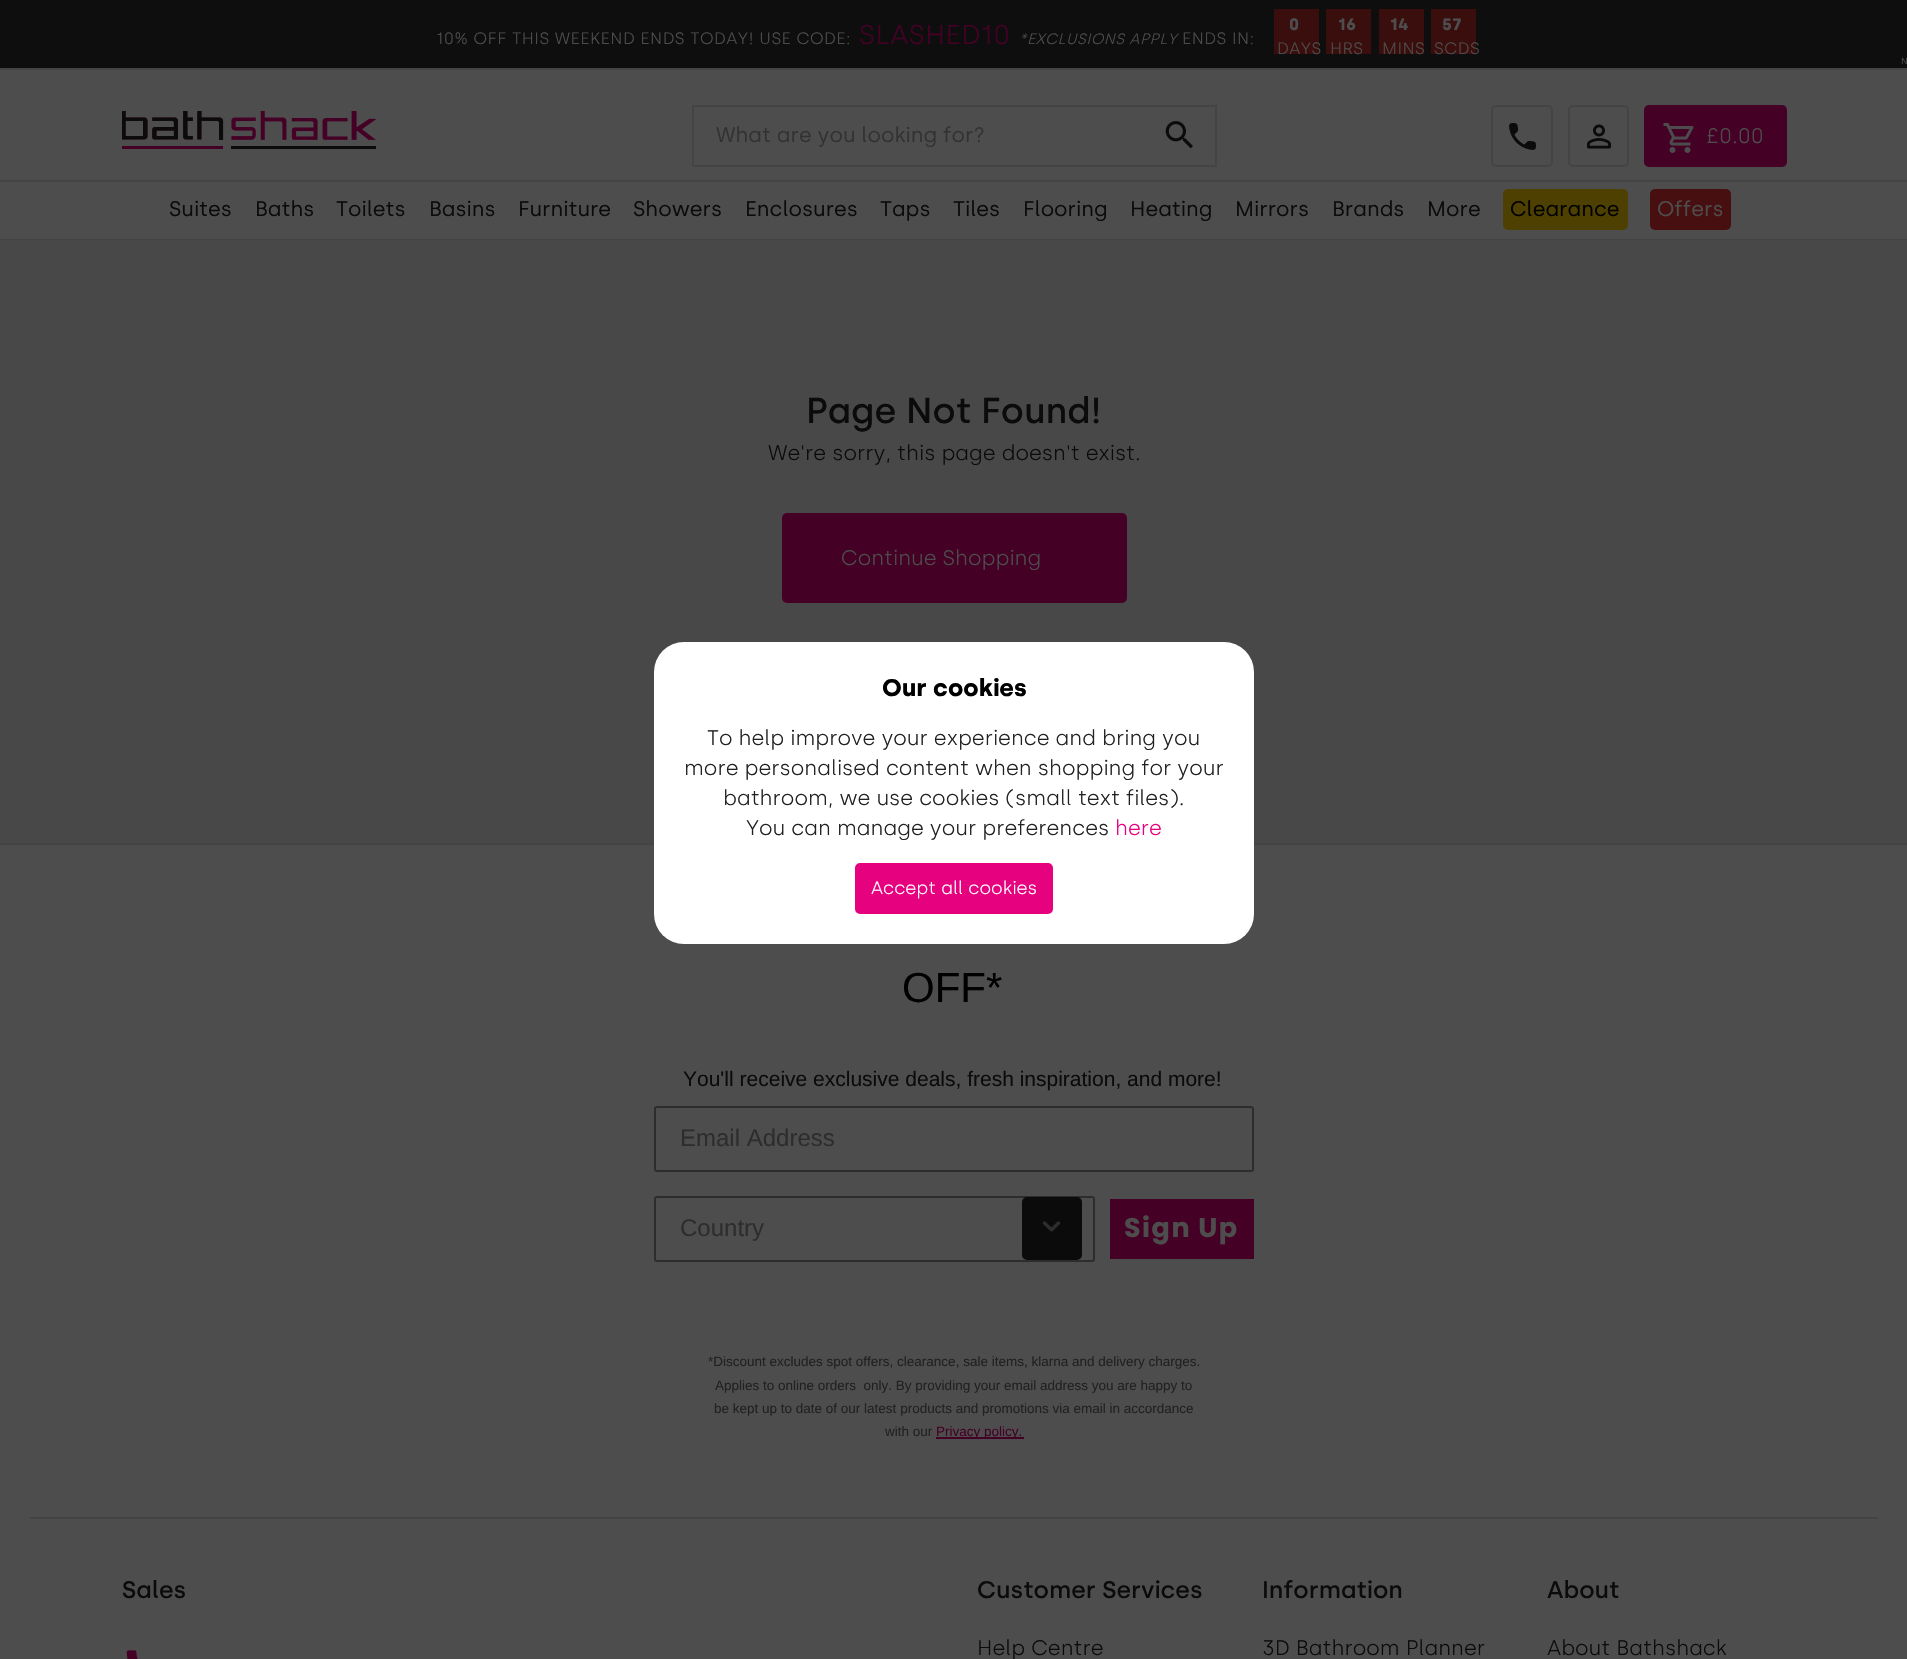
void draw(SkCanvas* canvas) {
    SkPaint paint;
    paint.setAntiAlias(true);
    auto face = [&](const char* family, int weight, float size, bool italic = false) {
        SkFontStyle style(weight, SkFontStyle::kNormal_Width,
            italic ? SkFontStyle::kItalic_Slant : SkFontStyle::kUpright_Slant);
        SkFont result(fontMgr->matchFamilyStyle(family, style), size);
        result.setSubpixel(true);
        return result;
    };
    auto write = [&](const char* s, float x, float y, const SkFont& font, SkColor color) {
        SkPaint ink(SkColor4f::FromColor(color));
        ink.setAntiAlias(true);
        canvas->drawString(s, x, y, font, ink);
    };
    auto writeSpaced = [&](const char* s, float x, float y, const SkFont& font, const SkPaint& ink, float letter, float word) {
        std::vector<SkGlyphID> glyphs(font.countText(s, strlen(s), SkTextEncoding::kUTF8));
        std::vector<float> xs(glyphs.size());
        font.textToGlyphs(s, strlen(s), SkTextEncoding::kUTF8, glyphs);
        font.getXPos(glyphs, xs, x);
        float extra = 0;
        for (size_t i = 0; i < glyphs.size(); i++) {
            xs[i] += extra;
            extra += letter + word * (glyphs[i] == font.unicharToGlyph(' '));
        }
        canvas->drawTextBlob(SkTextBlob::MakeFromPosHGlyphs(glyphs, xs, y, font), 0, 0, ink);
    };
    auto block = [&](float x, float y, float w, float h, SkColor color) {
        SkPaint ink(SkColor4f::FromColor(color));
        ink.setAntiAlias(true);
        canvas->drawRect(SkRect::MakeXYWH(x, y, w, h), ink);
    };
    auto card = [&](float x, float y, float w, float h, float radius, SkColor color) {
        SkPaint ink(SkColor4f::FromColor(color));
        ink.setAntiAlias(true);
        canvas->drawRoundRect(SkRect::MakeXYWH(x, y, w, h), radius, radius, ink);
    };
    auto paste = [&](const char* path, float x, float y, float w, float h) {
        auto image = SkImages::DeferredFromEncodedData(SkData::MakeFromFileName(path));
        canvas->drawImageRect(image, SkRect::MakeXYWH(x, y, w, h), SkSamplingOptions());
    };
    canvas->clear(SkColorSetRGB(77, 77, 77));
    block(0, 239, 1907, 1, SkColorSetRGB(68, 68, 68));
    block(0, 0, 1907, 68, SkColorSetRGB(14, 14, 14));
    block(0, 68, 1907, 2, SkColorSetRGB(68, 68, 68));
    auto kFont1 = face("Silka", 300, 16.5f);
    paint.setColor(SkColorSetRGB(77, 77, 77));
    writeSpaced("10% OFF THIS WEEKEND ENDS TODAY! USE CODE:", 436, 44, kFont1, paint, 0.45f, 0);
    auto kFont2 = face("Silka", 300, 27);
    paint.setColor(SkColorSetRGB(69, 0, 38));
    writeSpaced("SLASHED10", 859, 44, kFont2, paint, 0.45f, 0);
    auto kFont3 = face("Silka", 300, 15, true);
    paint.setColor(SkColorSetRGB(77, 77, 77));
    writeSpaced("*EXCLUSIONS APPLY", 1019, 44, kFont3, paint, 0.45f, 0);
    writeSpaced("ENDS IN:", 1182, 44, kFont1, paint, 0.45f, 0);
    block(1274, 9, 45, 45, SkColorSetRGB(58, 14, 13));
    auto kFont4 = face("Silka", 700, 16.5f);
    writeSpaced("0", 1289, 30, kFont4, paint, 0.45f, 0);
    writeSpaced("DAYS", 1277, 54, kFont1, paint, 0.45f, 0);
    block(1326, 9, 45, 45, SkColorSetRGB(58, 14, 13));
    writeSpaced("16", 1338, 30, kFont4, paint, 0.45f, 0);
    writeSpaced("HRS", 1330, 54, kFont1, paint, 0.45f, 0);
    block(1379, 9, 45, 45, SkColorSetRGB(58, 14, 13));
    writeSpaced("14", 1390, 30, kFont4, paint, 0.45f, 0);
    writeSpaced("MINS", 1382, 54, kFont1, paint, 0.45f, 0);
    block(1431, 9, 45, 45, SkColorSetRGB(58, 14, 13));
    writeSpaced("57", 1442, 30, kFont4, paint, 0.45f, 0);
    writeSpaced("SCDS", 1434, 54, kFont1, paint, 0.45f, 0);
    auto kFont5 = face("Silka", 400, 9);
    write("N", 1901, 64, kFont5, SkColorSetRGB(77, 77, 77));
    block(0, 180, 1907, 2, SkColorSetRGB(68, 68, 68));
    paste("pic1.png", 122, 111, 255, 38);
    block(692, 105, 525, 2, SkColorSetRGB(68, 68, 68));
    paint.setStyle(SkPaint::kStroke_Style);
    paint.setStrokeWidth(2);
    paint.setColor(SkColorSetRGB(68, 68, 68));
    canvas->drawRoundRect(SkRect::MakeXYWH(693, 106, 523, 60), 0.5f, 0.5f, paint);
    auto kFont6 = face("Silka", 400, 21);
    write("What are you looking for?", 716, 142, kFont6, SkColorSetRGB(50, 50, 50));
    paste("pic2.png", 1165, 121, 28, 28);
    canvas->drawRoundRect(SkRect::MakeXYWH(1492, 106, 60, 60), 4, 4, paint);
    paste("pic3.png", 1509, 123, 27, 27);
    canvas->drawRoundRect(SkRect::MakeXYWH(1569, 106, 59, 60), 4, 4, paint);
    paste("pic4.png", 1587, 124, 24, 25);
    card(1644, 105, 143, 62, 5, SkColorSetRGB(69, 0, 38));
    paste("pic5.png", 1663, 123, 31, 30);
    auto kFont7 = face("Silka", 300, 21);
    write("£0.00", 1706, 143, kFont7, SkColorSetRGB(77, 77, 77));
    write("Suites", 169, 216, kFont6, SkColorSetRGB(11, 11, 11));
    write("Baths", 255, 216, kFont6, SkColorSetRGB(11, 11, 11));
    write("Toilets", 336, 216, kFont6, SkColorSetRGB(11, 11, 11));
    write("Basins", 429, 216, kFont6, SkColorSetRGB(11, 11, 11));
    write("Furniture", 518, 216, kFont6, SkColorSetRGB(11, 11, 11));
    write("Showers", 633, 216, kFont6, SkColorSetRGB(11, 11, 11));
    write("Enclosures", 745, 216, kFont6, SkColorSetRGB(11, 11, 11));
    write("Taps", 880, 216, kFont6, SkColorSetRGB(11, 11, 11));
    write("Tiles", 953, 216, kFont6, SkColorSetRGB(11, 11, 11));
    write("Flooring", 1023, 216, kFont6, SkColorSetRGB(11, 11, 11));
    write("Heating", 1130, 216, kFont6, SkColorSetRGB(11, 11, 11));
    write("Mirrors", 1235, 216, kFont6, SkColorSetRGB(11, 11, 11));
    write("Brands", 1332, 216, kFont6, SkColorSetRGB(11, 11, 11));
    write("More", 1427, 216, kFont6, SkColorSetRGB(11, 11, 11));
    card(1503, 189, 125, 41, 5, SkColorSetRGB(77, 64, 0));
    write("Clearance", 1510, 216, kFont6, SK_ColorBLACK);
    card(1650, 189, 81, 41, 5, SkColorSetRGB(71, 15, 15));
    write("Offers", 1657, 216, kFont6, SkColorSetRGB(77, 77, 77));
    block(0, 240, 1907, 603, SkColorSetRGB(72, 72, 72));
    auto kFont8 = face("Silka", 500, 36);
    write("Page Not Found!", 806, 423, kFont8, SkColorSetRGB(11, 11, 11));
    write("We're sorry, this page doesn't exist.", 768, 460, kFont7, SkColorSetRGB(11, 11, 11));
    card(782, 513, 345, 90, 5, SkColorSetRGB(69, 0, 38));
    write("Continue Shopping", 841, 565, kFont7, SkColorSetRGB(77, 77, 77));
    block(0, 843, 1907, 2, SkColorSetRGB(68, 68, 68));
    block(30, 1517, 1848, 2, SkColorSetRGB(68, 68, 68));
    auto kFont9 = face("Liberation Sans", 400, 42);
    write("OFF*", 902, 1002, kFont9, SK_ColorBLACK);
    auto kFont10 = face("Liberation Sans", 400, 21);
    write("You'll receive exclusive deals, fresh inspiration, and more!", 683, 1086, kFont10, SkColorSetRGB(11, 11, 11));
    paint.setColor(SkColorSetRGB(44, 45, 45));
    canvas->drawRoundRect(SkRect::MakeXYWH(655, 1107, 598, 64), 2, 2, paint);
    auto kFont11 = face("Liberation Sans", 400, 24);
    write("Email Address", 680, 1146, kFont11, SkColorSetRGB(44, 45, 45));
    canvas->drawRoundRect(SkRect::MakeXYWH(655, 1197, 439, 64), 2, 2, paint);
    write("Country", 680, 1236, kFont11, SkColorSetRGB(44, 45, 45));
    card(1022, 1197, 60, 63, 5, SkColorSetRGB(11, 11, 11));
    paste("pic6.png", 1042, 1221, 19, 11);
    block(1110, 1199, 144, 60, SkColorSetRGB(69, 0, 38));
    auto kFont12 = face("Poppins", 700, 27);
    paint.setStyle(SkPaint::kFill_Style);
    paint.setColor(SkColorSetRGB(77, 77, 77));
    writeSpaced("Sign Up", 1124, 1237, kFont12, paint, 1.5f, 0);
    auto kFont13 = face("Liberation Sans", 400, 13.5f);
    write("*Discount excludes spot offers, clearance, sale items, klarna and delivery charges.", 708, 1366, kFont13, SkColorSetRGB(34, 33, 33));
    write("Applies to online orders  only. By providing your email address you are happy to", 715, 1390, kFont13, SkColorSetRGB(34, 33, 33));
    write("be kept up to date of our latest products and promotions via email in accordance", 714, 1413, kFont13, SkColorSetRGB(34, 33, 33));
    write("with our", 885, 1436, kFont13, SkColorSetRGB(34, 33, 33));
    block(936, 1437, 88, 2, SkColorSetRGB(69, 0, 38));
    write("Privacy policy.", 936, 1436, kFont13, SkColorSetRGB(69, 0, 38));
    auto kFont14 = face("Silka", 500, 24);
    write("Sales", 122, 1598, kFont14, SkColorSetRGB(11, 11, 11));
    paste("pic7.png", 126, 1650, 12, 9);
    write("Customer Services", 977, 1598, kFont14, SkColorSetRGB(11, 11, 11));
    write("Help Centre", 977, 1655, kFont7, SkColorSetRGB(11, 11, 11));
    write("Information", 1262, 1598, kFont14, SkColorSetRGB(11, 11, 11));
    write("3D Bathroom Planner", 1262, 1655, kFont7, SkColorSetRGB(11, 11, 11));
    write("About", 1547, 1598, kFont14, SkColorSetRGB(11, 11, 11));
    write("About Bathshack", 1547, 1655, kFont7, SkColorSetRGB(11, 11, 11));
    card(654, 642, 600, 302, 30, SK_ColorWHITE);
    auto kFont15 = face("Silka", 700, 24);
    write("Our cookies", 882, 696, kFont15, SK_ColorBLACK);
    write("To help improve your experience and bring you", 707, 745, kFont7, SkColorSetRGB(34, 33, 33));
    write("more personalised content when shopping for your", 684, 775, kFont7, SkColorSetRGB(34, 33, 33));
    write("bathroom, we use cookies (small text files).", 723, 805, kFont7, SkColorSetRGB(34, 33, 33));
    write("You can manage your preferences", 746, 835, kFont7, SkColorSetRGB(34, 33, 33));
    write("here", 1115, 835, kFont7, SkColorSetRGB(230, 1, 126));
    paint.setColor(SkColorSetRGB(230, 1, 126));
    canvas->drawRoundRect(SkRect::MakeXYWH(856, 864, 196, 49), 4, 4, paint);
    paint.setStyle(SkPaint::kStroke_Style);
    canvas->drawRoundRect(SkRect::MakeXYWH(856, 864, 196, 49), 4, 4, paint);
    auto kFont16 = face("Silka", 300, 18);
    write("Accept all cookies", 871, 894, kFont16, SK_ColorWHITE);
}
